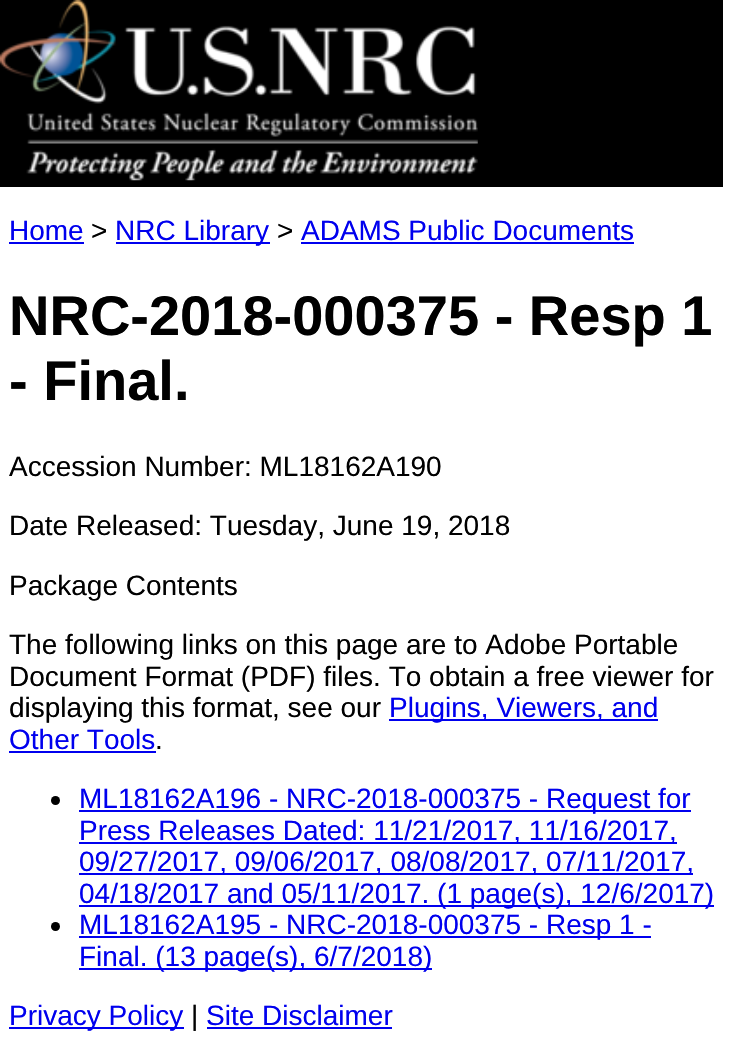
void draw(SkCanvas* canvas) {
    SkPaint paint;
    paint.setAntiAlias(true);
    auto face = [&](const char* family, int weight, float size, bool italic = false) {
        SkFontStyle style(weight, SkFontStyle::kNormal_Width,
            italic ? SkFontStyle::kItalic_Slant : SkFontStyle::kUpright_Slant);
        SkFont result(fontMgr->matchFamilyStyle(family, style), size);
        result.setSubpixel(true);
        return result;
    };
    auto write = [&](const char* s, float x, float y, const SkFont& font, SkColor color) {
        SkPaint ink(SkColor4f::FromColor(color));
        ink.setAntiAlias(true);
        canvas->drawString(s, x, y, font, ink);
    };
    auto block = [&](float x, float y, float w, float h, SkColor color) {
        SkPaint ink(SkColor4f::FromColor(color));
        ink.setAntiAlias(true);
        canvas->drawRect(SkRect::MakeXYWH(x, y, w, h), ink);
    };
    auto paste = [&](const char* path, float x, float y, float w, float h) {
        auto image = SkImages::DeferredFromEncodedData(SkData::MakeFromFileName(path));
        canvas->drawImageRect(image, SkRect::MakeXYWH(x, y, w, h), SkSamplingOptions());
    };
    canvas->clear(SK_ColorWHITE);
    block(0, 0, 723, 187, SK_ColorBLACK);
    paste("pic1.png", 0, 0, 478, 181);
    auto kFont1 = face("Liberation Sans", 400, 28);
    write("Home", 9, 240, kFont1, SkColorSetRGB(0, 0, 238));
    block(9, 242, 75, 2, SkColorSetRGB(0, 0, 238));
    write(">", 91, 240, kFont1, SK_ColorBLACK);
    block(116, 242, 154, 2, SkColorSetRGB(0, 0, 238));
    write("NRC Library", 115, 240, kFont1, SkColorSetRGB(0, 0, 238));
    write(">", 277, 240, kFont1, SK_ColorBLACK);
    write("ADAMS Public Documents", 301, 240, kFont1, SkColorSetRGB(0, 0, 238));
    block(301, 242, 333, 2, SkColorSetRGB(0, 0, 238));
    auto kFont2 = face("Liberation Sans", 700, 56);
    write("NRC-2018-000375 - Resp 1", 9, 335, kFont2, SK_ColorBLACK);
    write("- Final.", 9, 400, kFont2, SK_ColorBLACK);
    write("Accession Number: ML18162A190", 9, 476, kFont1, SK_ColorBLACK);
    write("Date Released: Tuesday, June 19, 2018", 9, 535, kFont1, SK_ColorBLACK);
    write("Package Contents", 9, 595, kFont1, SK_ColorBLACK);
    write("The following links on this page are to Adobe Portable", 9, 654, kFont1, SK_ColorBLACK);
    write("Document Format (PDF) files. To obtain a free viewer for", 9, 686, kFont1, SK_ColorBLACK);
    write("displaying this format, see our", 9, 717, kFont1, SK_ColorBLACK);
    block(389, 719, 269, 2, SkColorSetRGB(0, 0, 238));
    write("Plugins, Viewers, and", 389, 717, kFont1, SkColorSetRGB(0, 0, 238));
    write("Other Tools", 9, 749, kFont1, SkColorSetRGB(0, 0, 238));
    block(9, 751, 147, 2, SkColorSetRGB(0, 0, 238));
    write(".", 155, 749, kFont1, SK_ColorBLACK);
    paint.setColor(SK_ColorBLACK);
    canvas->drawCircle(55.5f, 800.5f, 4.5f, paint);
    block(79, 810, 612, 2, SkColorSetRGB(0, 0, 238));
    write("ML18162A196 - NRC-2018-000375 - Request for", 79, 808, kFont1, SkColorSetRGB(0, 0, 238));
    block(79, 842, 598, 2, SkColorSetRGB(0, 0, 238));
    write("Press Releases Dated: 11/21/2017, 11/16/2017,", 79, 840, kFont1, SkColorSetRGB(0, 0, 238));
    block(79, 873, 614, 2, SkColorSetRGB(0, 0, 238));
    write("09/27/2017, 09/06/2017, 08/08/2017, 07/11/2017,", 79, 871, kFont1, SkColorSetRGB(0, 0, 238));
    block(79, 905, 635, 2, SkColorSetRGB(0, 0, 238));
    write("04/18/2017 and 05/11/2017. (1 page(s), 12/6/2017)", 79, 903, kFont1, SkColorSetRGB(0, 0, 238));
    canvas->drawCircle(55.5f, 926.5f, 4.5f, paint);
    block(79, 936, 572, 2, SkColorSetRGB(0, 0, 238));
    write("ML18162A195 - NRC-2018-000375 - Resp 1 -", 79, 934, kFont1, SkColorSetRGB(0, 0, 238));
    block(79, 968, 353, 2, SkColorSetRGB(0, 0, 238));
    write("Final. (13 page(s), 6/7/2018)", 79, 966, kFont1, SkColorSetRGB(0, 0, 238));
    block(9, 1027, 175, 2, SkColorSetRGB(0, 0, 238));
    write("Privacy Policy", 9, 1025, kFont1, SkColorSetRGB(0, 0, 238));
    write("|", 191, 1025, kFont1, SK_ColorBLACK);
    write("Site Disclaimer", 206, 1025, kFont1, SkColorSetRGB(0, 0, 238));
    block(207, 1027, 185, 2, SkColorSetRGB(0, 0, 238));
}
